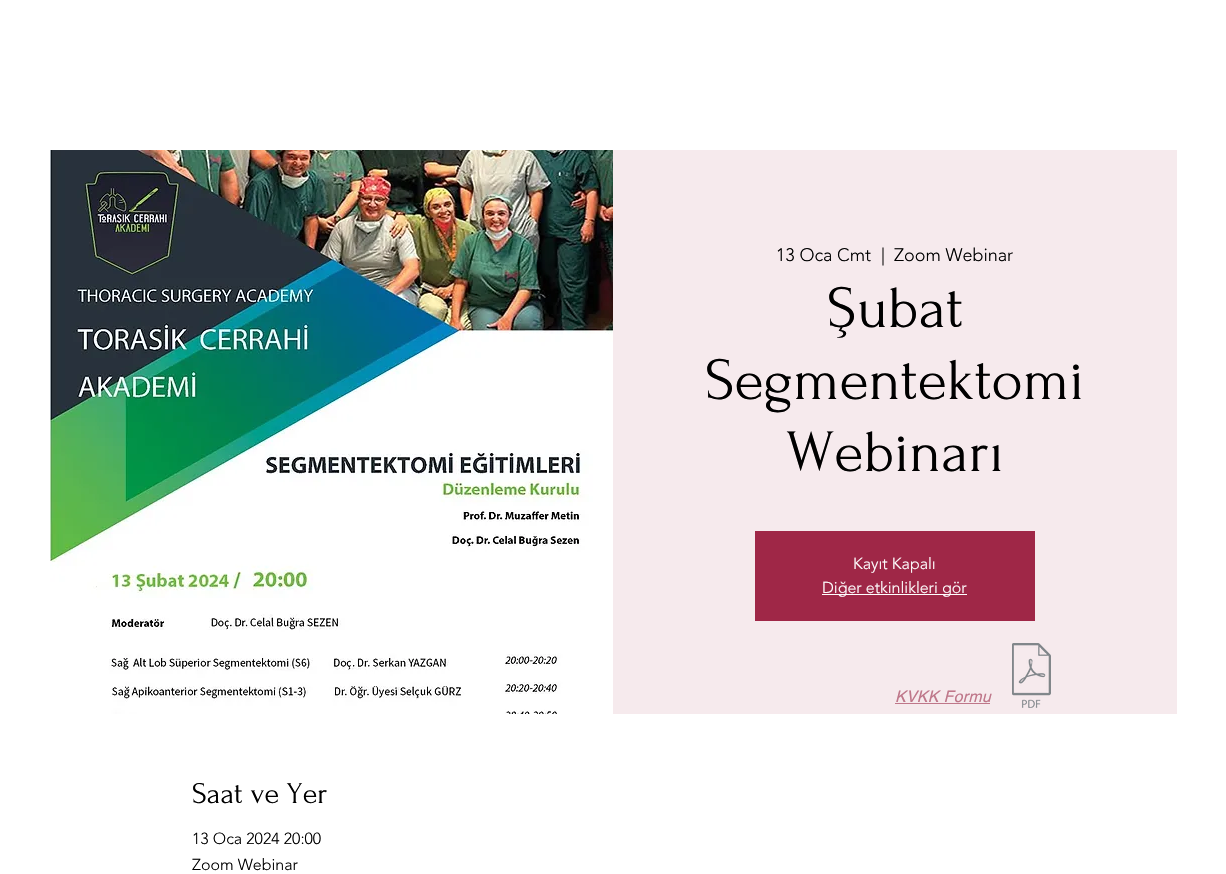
void draw(SkCanvas* canvas) {
    SkPaint paint;
    paint.setAntiAlias(true);
    auto face = [&](const char* family, int weight, float size, bool italic = false) {
        SkFontStyle style(weight, SkFontStyle::kNormal_Width,
            italic ? SkFontStyle::kItalic_Slant : SkFontStyle::kUpright_Slant);
        SkFont result(fontMgr->matchFamilyStyle(family, style), size);
        result.setSubpixel(true);
        return result;
    };
    auto write = [&](const char* s, float x, float y, const SkFont& font, SkColor color) {
        SkPaint ink(SkColor4f::FromColor(color));
        ink.setAntiAlias(true);
        canvas->drawString(s, x, y, font, ink);
    };
    auto writeSpaced = [&](const char* s, float x, float y, const SkFont& font, const SkPaint& ink, float letter, float word) {
        std::vector<SkGlyphID> glyphs(font.countText(s, strlen(s), SkTextEncoding::kUTF8));
        std::vector<float> xs(glyphs.size());
        font.textToGlyphs(s, strlen(s), SkTextEncoding::kUTF8, glyphs);
        font.getXPos(glyphs, xs, x);
        float extra = 0;
        for (size_t i = 0; i < glyphs.size(); i++) {
            xs[i] += extra;
            extra += letter + word * (glyphs[i] == font.unicharToGlyph(' '));
        }
        canvas->drawTextBlob(SkTextBlob::MakeFromPosHGlyphs(glyphs, xs, y, font), 0, 0, ink);
    };
    auto block = [&](float x, float y, float w, float h, SkColor color) {
        SkPaint ink(SkColor4f::FromColor(color));
        ink.setAntiAlias(true);
        canvas->drawRect(SkRect::MakeXYWH(x, y, w, h), ink);
    };
    auto paste = [&](const char* path, float x, float y, float w, float h) {
        auto image = SkImages::DeferredFromEncodedData(SkData::MakeFromFileName(path));
        canvas->drawImageRect(image, SkRect::MakeXYWH(x, y, w, h), SkSamplingOptions());
    };
    canvas->clear(SK_ColorWHITE);
    paste("pic1.png", 50, 150, 563, 564);
    block(613, 150, 564, 564, SkColorSetRGB(246, 234, 237));
    auto kFont1 = face("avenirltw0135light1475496", 300, 18);
    write("13 Oca Cmt", 776, 261, kFont1, SK_ColorBLACK);
    write("|", 881, 261, kFont1, SK_ColorBLACK);
    write("Zoom Webinar", 894, 261, kFont1, SK_ColorBLACK);
    auto kFont2 = face("Forum", 400, 60);
    write("Şubat", 827, 327, kFont2, SK_ColorBLACK);
    write("Segmentektomi", 705, 399, kFont2, SK_ColorBLACK);
    write("Webinarı", 786, 471, kFont2, SK_ColorBLACK);
    block(755, 531, 280, 90, SkColorSetRGB(159, 39, 71));
    auto kFont3 = face("avenirltw0135light1475496", 300, 16);
    write("Kayıt Kapalı", 853, 569, kFont3, SK_ColorWHITE);
    block(822, 594, 145, 1, SK_ColorWHITE);
    write("Diğer etkinlikleri gör", 822, 593, kFont3, SK_ColorWHITE);
    auto kFont4 = face("Forum", 400, 30);
    write("Saat ve Yer", 192, 803, kFont4, SK_ColorBLACK);
    write("13 Oca 2024 20:00", 192, 844, kFont3, SK_ColorBLACK);
    write("Zoom Webinar", 192, 870, kFont3, SK_ColorBLACK);
    auto kFont5 = face("helvetica", 400, 16, true);
    paint.setColor(SkColorSetRGB(191, 119, 138));
    writeSpaced("KVKK Formu", 895, 702, kFont5, paint, 0.25f, 0);
    block(895, 703, 95, 1, SkColorSetRGB(191, 119, 138));
    paste("pic2.png", 1012, 643, 39, 65);
}
